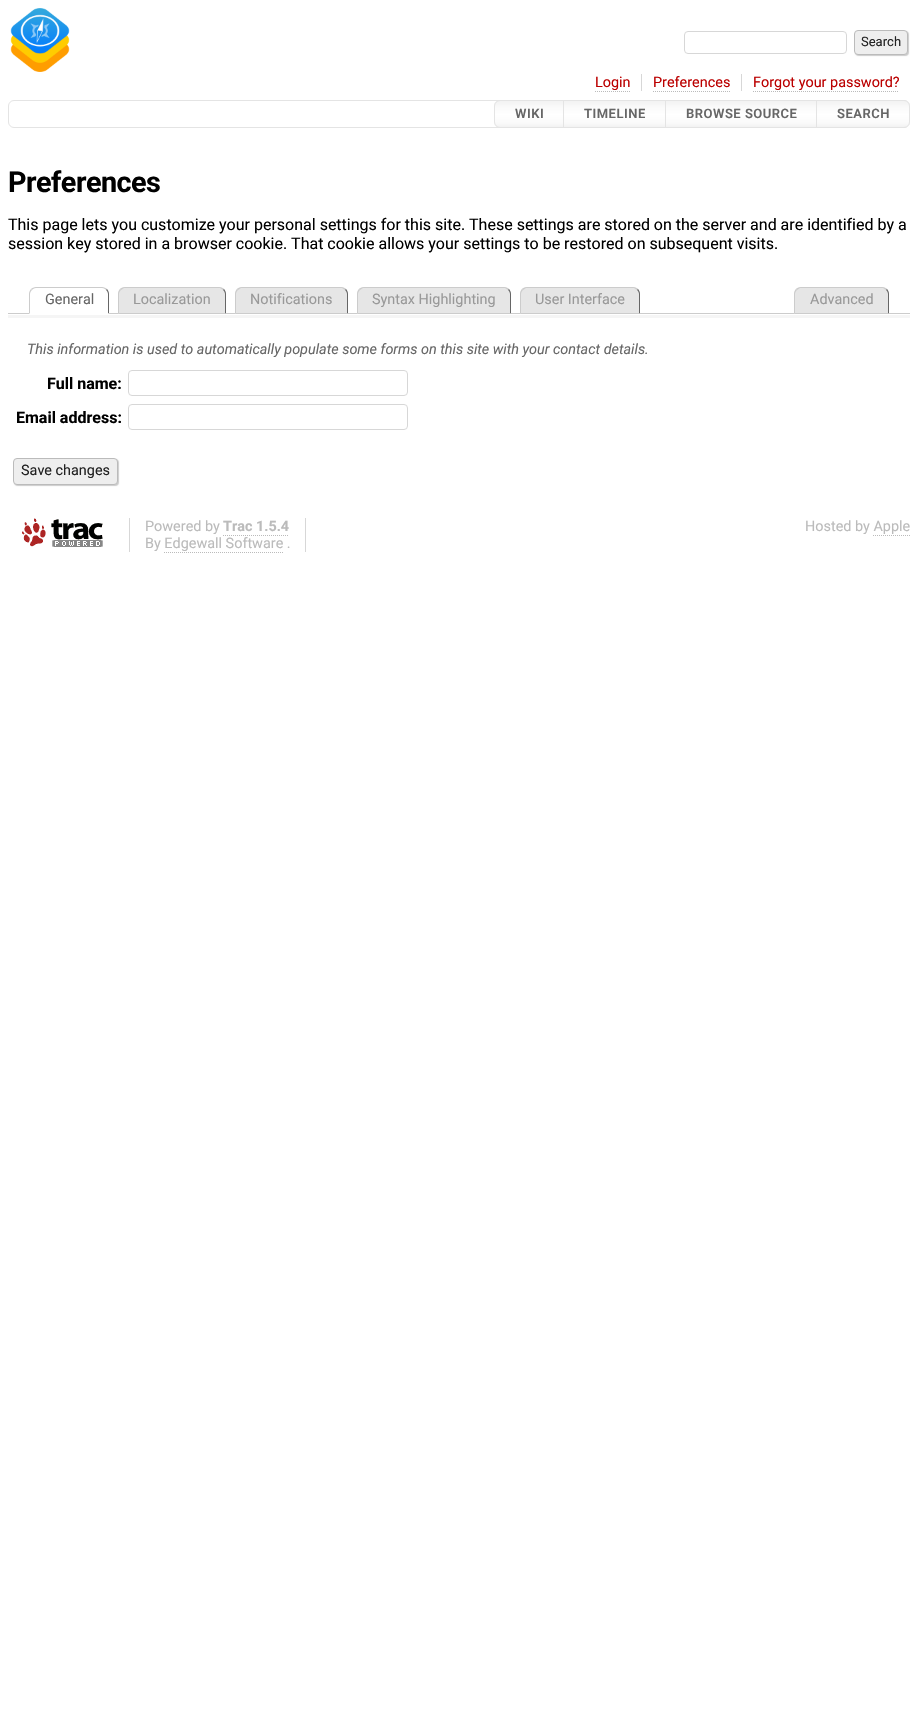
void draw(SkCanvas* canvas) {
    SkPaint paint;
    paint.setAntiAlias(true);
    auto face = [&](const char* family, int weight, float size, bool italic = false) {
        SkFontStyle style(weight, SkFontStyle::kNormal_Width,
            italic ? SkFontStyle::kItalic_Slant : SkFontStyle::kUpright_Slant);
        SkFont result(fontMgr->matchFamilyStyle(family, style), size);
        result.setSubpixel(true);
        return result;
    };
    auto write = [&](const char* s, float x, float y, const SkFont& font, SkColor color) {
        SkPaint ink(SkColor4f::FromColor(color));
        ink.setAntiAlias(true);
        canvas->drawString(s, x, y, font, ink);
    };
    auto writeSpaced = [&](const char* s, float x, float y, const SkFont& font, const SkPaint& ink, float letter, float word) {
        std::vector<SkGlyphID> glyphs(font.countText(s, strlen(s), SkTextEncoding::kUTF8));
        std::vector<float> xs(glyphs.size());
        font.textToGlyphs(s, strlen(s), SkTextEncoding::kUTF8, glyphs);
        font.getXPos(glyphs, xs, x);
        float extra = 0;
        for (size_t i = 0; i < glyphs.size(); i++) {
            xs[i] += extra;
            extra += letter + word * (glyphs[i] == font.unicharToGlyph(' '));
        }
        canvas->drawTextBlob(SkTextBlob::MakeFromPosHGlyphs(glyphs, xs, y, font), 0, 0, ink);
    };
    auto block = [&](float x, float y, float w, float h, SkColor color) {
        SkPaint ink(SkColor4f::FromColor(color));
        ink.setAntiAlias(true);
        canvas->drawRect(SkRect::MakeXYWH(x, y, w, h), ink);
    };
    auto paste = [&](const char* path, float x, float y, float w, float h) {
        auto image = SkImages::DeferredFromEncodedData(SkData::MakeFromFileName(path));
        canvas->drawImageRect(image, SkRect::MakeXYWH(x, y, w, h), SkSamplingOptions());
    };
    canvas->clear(SK_ColorWHITE);
    paste("pic1.png", 10, 8, 60, 64);
    paint.setStyle(SkPaint::kStroke_Style);
    paint.setStrokeWidth(1);
    paint.setColor(SkColorSetRGB(215, 215, 215));
    canvas->drawRoundRect(SkRect::MakeXYWH(684.5f, 31.5f, 162, 22), 3.5f, 3.5f, paint);
    paint.setStyle(SkPaint::kFill_Style);
    paint.setColor(SkColorSetRGB(204, 204, 204));
    paint.setMaskFilter(SkMaskFilter::MakeBlur(kNormal_SkBlurStyle, 0.5f));
    canvas->drawRoundRect(SkRect::MakeXYWH(855, 31, 54, 25), 4, 4, paint);
    paint.setMaskFilter(nullptr);
    paint.setColor(SkColorSetRGB(238, 238, 238));
    canvas->drawRoundRect(SkRect::MakeXYWH(854.5f, 30.5f, 53, 24), 3.5f, 3.5f, paint);
    paint.setStyle(SkPaint::kStroke_Style);
    paint.setColor(SkColorSetRGB(187, 187, 187));
    canvas->drawRoundRect(SkRect::MakeXYWH(854.5f, 30.5f, 53, 24), 3.5f, 3.5f, paint);
    auto kFont1 = face("Roboto", 400, 13);
    write("Search", 861, 46, kFont1, SkColorSetRGB(34, 34, 34));
    block(641, 74, 1, 17, SkColorSetRGB(215, 215, 215));
    auto kFont2 = face("Roboto", 400, 14.4f);
    write("Login", 595, 87, kFont2, SkColorSetRGB(187, 0, 0));
    paint.setPathEffect(SkDashPathEffect::Make({{1, 1}}, 0));
    canvas->drawPath(SkPathBuilder().moveTo(595, 91.5f).lineTo(630, 91.5f).detach(), paint);
    paint.setPathEffect(nullptr);
    block(741, 74, 1, 17, SkColorSetRGB(215, 215, 215));
    write("Preferences", 653, 87, kFont2, SkColorSetRGB(187, 0, 0));
    paint.setPathEffect(SkDashPathEffect::Make({{1, 1}}, 0));
    canvas->drawPath(SkPathBuilder().moveTo(653, 91.5f).lineTo(730, 91.5f).detach(), paint);
    paint.setPathEffect(nullptr);
    write("Forgot your password?", 753, 87, kFont2, SkColorSetRGB(187, 0, 0));
    paint.setPathEffect(SkDashPathEffect::Make({{1, 1}}, 0));
    canvas->drawPath(SkPathBuilder().moveTo(753, 91.5f).lineTo(899, 91.5f).detach(), paint);
    paint.setPathEffect(nullptr);
    paint.setColor(SkColorSetRGB(228, 228, 228));
    canvas->drawRoundRect(SkRect::MakeXYWH(8.5f, 100.5f, 901, 27), 5.5f, 5.5f, paint);
    canvas->save();
    canvas->clipPath(SkPathBuilder().moveTo(500, 100).lineTo(564, 100).lineTo(564, 128).lineTo(500, 128).cubicTo(496.5f, 128, 494, 125.5f, 494, 122).lineTo(494, 106).cubicTo(494, 102.5f, 496.5f, 100, 500, 100).close().detach(), true);
    paint.setStyle(SkPaint::kFill_Style);
    {
        const SkColor colors[] = {SkColorSetRGB(242, 242, 242), SkColorSetRGB(250, 250, 250), SkColorSetRGB(254, 254, 254), SK_ColorWHITE, SkColorSetRGB(250, 250, 250), SkColorSetRGB(242, 242, 242)};
        const float stops[] = {0, 0.25f, 0.49f, 0.51f, 0.85f, 1};
        const SkPoint ends[] = {{529, 101}, {529, 127}};
        paint.setShader(SkGradientShader::MakeLinear(ends, colors, stops, 6, SkTileMode::kClamp));
        paint.setAlpha(255);
    }
    canvas->drawRect(SkRect::MakeXYWH(494, 101, 69, 26), paint);
    canvas->restore();
    paint.setStyle(SkPaint::kStroke_Style);
    paint.setShader(nullptr);
    paint.setColor(SkColorSetRGB(228, 228, 228));
    canvas->drawPath(SkPathBuilder().moveTo(500, 100.5f).lineTo(563.5f, 100.5f).lineTo(563.5f, 127.5f).lineTo(500, 127.5f).cubicTo(497, 127.5f, 494.5f, 125, 494.5f, 122).lineTo(494.5f, 106).cubicTo(494.5f, 103, 497, 100.5f, 500, 100.5f).close().detach(), paint);
    auto kFont3 = face("Roboto", 600, 13);
    paint.setStyle(SkPaint::kFill_Style);
    paint.setColor(SkColorSetRGB(102, 102, 102));
    writeSpaced("WIKI", 515, 118, kFont3, paint, 0.5f, 0);
    {
        const SkColor colors[] = {SkColorSetRGB(242, 242, 242), SkColorSetRGB(250, 250, 250), SkColorSetRGB(254, 254, 254), SK_ColorWHITE, SkColorSetRGB(250, 250, 250), SkColorSetRGB(242, 242, 242)};
        const float stops[] = {0, 0.25f, 0.49f, 0.51f, 0.85f, 1};
        const SkPoint ends[] = {{615, 101}, {615, 127}};
        paint.setShader(SkGradientShader::MakeLinear(ends, colors, stops, 6, SkTileMode::kClamp));
        paint.setAlpha(255);
    }
    canvas->drawRect(SkRect::MakeXYWH(564, 101, 101, 26), paint);
    paint.setStyle(SkPaint::kStroke_Style);
    paint.setShader(nullptr);
    paint.setColor(SkColorSetRGB(228, 228, 228));
    canvas->drawRect(SkRect::MakeXYWH(563.5f, 100.5f, 102, 27), paint);
    paint.setStyle(SkPaint::kFill_Style);
    paint.setColor(SkColorSetRGB(102, 102, 102));
    writeSpaced("TIMELINE", 584, 118, kFont3, paint, 0.5f, 0);
    {
        const SkColor colors[] = {SkColorSetRGB(242, 242, 242), SkColorSetRGB(250, 250, 250), SkColorSetRGB(254, 254, 254), SK_ColorWHITE, SkColorSetRGB(250, 250, 250), SkColorSetRGB(242, 242, 242)};
        const float stops[] = {0, 0.25f, 0.49f, 0.51f, 0.85f, 1};
        const SkPoint ends[] = {{741, 101}, {741, 127}};
        paint.setShader(SkGradientShader::MakeLinear(ends, colors, stops, 6, SkTileMode::kClamp));
        paint.setAlpha(255);
    }
    canvas->drawRect(SkRect::MakeXYWH(666, 101, 150, 26), paint);
    paint.setStyle(SkPaint::kStroke_Style);
    paint.setShader(nullptr);
    paint.setColor(SkColorSetRGB(228, 228, 228));
    canvas->drawRect(SkRect::MakeXYWH(665.5f, 100.5f, 151, 27), paint);
    paint.setStyle(SkPaint::kFill_Style);
    paint.setColor(SkColorSetRGB(102, 102, 102));
    writeSpaced("BROWSE SOURCE", 686, 118, kFont3, paint, 0.5f, 0);
    canvas->save();
    canvas->clipPath(SkPathBuilder().moveTo(816, 100).lineTo(904, 100).cubicTo(907.5f, 100, 910, 102.5f, 910, 106).lineTo(910, 122).cubicTo(910, 125.5f, 907.5f, 128, 904, 128).lineTo(816, 128).close().detach(), true);
    {
        const SkColor colors[] = {SkColorSetRGB(242, 242, 242), SkColorSetRGB(250, 250, 250), SkColorSetRGB(254, 254, 254), SK_ColorWHITE, SkColorSetRGB(250, 250, 250), SkColorSetRGB(242, 242, 242)};
        const float stops[] = {0, 0.25f, 0.49f, 0.51f, 0.85f, 1};
        const SkPoint ends[] = {{863, 101}, {863, 127}};
        paint.setShader(SkGradientShader::MakeLinear(ends, colors, stops, 6, SkTileMode::kClamp));
        paint.setAlpha(255);
    }
    canvas->drawRect(SkRect::MakeXYWH(817, 101, 93, 26), paint);
    canvas->restore();
    paint.setStyle(SkPaint::kStroke_Style);
    paint.setShader(nullptr);
    paint.setColor(SkColorSetRGB(228, 228, 228));
    canvas->drawPath(SkPathBuilder().moveTo(816.5f, 100.5f).lineTo(904, 100.5f).cubicTo(907, 100.5f, 909.5f, 103, 909.5f, 106).lineTo(909.5f, 122).cubicTo(909.5f, 125, 907, 127.5f, 904, 127.5f).lineTo(816.5f, 127.5f).close().detach(), paint);
    paint.setStyle(SkPaint::kFill_Style);
    paint.setColor(SkColorSetRGB(102, 102, 102));
    writeSpaced("SEARCH", 837, 118, kFont3, paint, 0.5f, 0);
    auto kFont4 = face("Roboto", 700, 28.75f);
    paint.setColor(SK_ColorBLACK);
    writeSpaced("Preferences", 8, 192, kFont4, paint, -0.5f, 0);
    auto kFont5 = face("Roboto", 400, 16);
    write("This page lets you customize your personal settings for this site. These settings are stored on the server and are identified by a", 8, 230, kFont5, SK_ColorBLACK);
    write("session key stored in a browser cookie. That cookie allows your settings to be restored on subsequent visits.", 8, 249, kFont5, SK_ColorBLACK);
    block(8, 313, 902, 1, SkColorSetRGB(204, 204, 204));
    paint.setColor(SK_ColorWHITE);
    canvas->drawPath(SkPathBuilder().moveTo(36, 287).lineTo(102, 287).cubicTo(106, 287, 109, 290, 109, 294).lineTo(109, 314).lineTo(29, 314).lineTo(29, 294).cubicTo(29, 290, 32, 287, 36, 287).close().detach(), paint);
    paint.setColor(SkColorSetRGB(204, 204, 204));
    canvas->drawPath(SkPathBuilder().moveTo(36, 287).cubicTo(34, 287, 32, 288, 31, 289).lineTo(32, 290).cubicTo(33, 289, 34, 288, 36, 288).lineTo(102, 288).cubicTo(104, 288, 105, 289, 106, 290).lineTo(107, 289).cubicTo(106, 288, 104, 287, 102, 287).close().detach(), paint);
    paint.setColor(SkColorSetRGB(102, 102, 102));
    canvas->drawPath(SkPathBuilder().moveTo(109, 314).lineTo(109, 294).cubicTo(109, 292, 108, 290, 107, 289).lineTo(106, 290).cubicTo(107, 291, 108, 292.5f, 108, 294).lineTo(108, 313).close().detach(), paint);
    paint.setColor(SK_ColorWHITE);
    canvas->drawPath(SkPathBuilder().moveTo(109, 314).lineTo(108, 313).lineTo(30, 313).lineTo(29, 314).close().detach(), paint);
    paint.setColor(SkColorSetRGB(204, 204, 204));
    canvas->drawPath(SkPathBuilder().moveTo(29, 314).lineTo(30, 313).lineTo(30, 294).cubicTo(30, 292.5f, 31, 291, 32, 290).lineTo(31, 289).cubicTo(30, 290, 29, 292, 29, 294).close().detach(), paint);
    write("General", 45, 304, kFont2, SkColorSetRGB(102, 102, 102));
    paint.setColor(SkColorSetRGB(230, 230, 230));
    canvas->drawPath(SkPathBuilder().moveTo(125, 287).lineTo(219, 287).cubicTo(223, 287, 226, 290, 226, 294).lineTo(226, 314).lineTo(118, 314).lineTo(118, 294).cubicTo(118, 290, 121, 287, 125, 287).close().detach(), paint);
    paint.setColor(SkColorSetRGB(204, 204, 204));
    canvas->drawPath(SkPathBuilder().moveTo(125, 287).cubicTo(123, 287, 121, 288, 120, 289).lineTo(121, 290).lineTo(124, 288).lineTo(220, 288).lineTo(223, 290).lineTo(224, 289).cubicTo(223, 288, 221, 287, 219, 287).close().detach(), paint);
    paint.setColor(SkColorSetRGB(102, 102, 102));
    canvas->drawPath(SkPathBuilder().moveTo(226, 314).lineTo(226, 294).cubicTo(226, 292, 225, 290, 224, 289).lineTo(223, 290).cubicTo(224, 291, 225, 292.5f, 225, 294).lineTo(225, 313).close().detach(), paint);
    paint.setColor(SkColorSetRGB(204, 204, 204));
    canvas->drawPath(SkPathBuilder().moveTo(226, 314).lineTo(225, 313).lineTo(119, 313).lineTo(118, 314).close().detach(), paint);
    canvas->drawPath(SkPathBuilder().moveTo(118, 314).lineTo(119, 313).lineTo(119, 294).cubicTo(119, 292.5f, 120, 291, 121, 290).lineTo(120, 289).cubicTo(119, 290, 118, 292, 118, 294).close().detach(), paint);
    write("Localization", 133, 304, kFont2, SkColorSetRGB(153, 153, 153));
    paint.setColor(SkColorSetRGB(230, 230, 230));
    canvas->drawPath(SkPathBuilder().moveTo(242, 287).lineTo(341, 287).cubicTo(345, 287, 348, 290, 348, 294).lineTo(348, 314).lineTo(235, 314).lineTo(235, 294).cubicTo(235, 290, 238, 287, 242, 287).close().detach(), paint);
    paint.setColor(SkColorSetRGB(204, 204, 204));
    canvas->drawPath(SkPathBuilder().moveTo(242, 287).cubicTo(240, 287, 238, 288, 237, 289).lineTo(238, 290).lineTo(241, 288).lineTo(342, 288).lineTo(345, 290).lineTo(346, 289).cubicTo(345, 288, 343, 287, 341, 287).close().detach(), paint);
    paint.setColor(SkColorSetRGB(102, 102, 102));
    canvas->drawPath(SkPathBuilder().moveTo(348, 314).lineTo(348, 294).cubicTo(348, 292, 347, 290, 346, 289).lineTo(345, 290).cubicTo(346, 291, 347, 292.5f, 347, 294).lineTo(347, 313).close().detach(), paint);
    paint.setColor(SkColorSetRGB(204, 204, 204));
    canvas->drawPath(SkPathBuilder().moveTo(348, 314).lineTo(347, 313).lineTo(236, 313).lineTo(235, 314).close().detach(), paint);
    canvas->drawPath(SkPathBuilder().moveTo(235, 314).lineTo(236, 313).lineTo(236, 294).cubicTo(236, 292.5f, 237, 291, 238, 290).lineTo(237, 289).cubicTo(236, 290, 235, 292, 235, 294).close().detach(), paint);
    write("Notifications", 250, 304, kFont2, SkColorSetRGB(153, 153, 153));
    paint.setColor(SkColorSetRGB(230, 230, 230));
    canvas->drawPath(SkPathBuilder().moveTo(364, 287).lineTo(504, 287).cubicTo(508, 287, 511, 290, 511, 294).lineTo(511, 314).lineTo(357, 314).lineTo(357, 294).cubicTo(357, 290, 360, 287, 364, 287).close().detach(), paint);
    paint.setColor(SkColorSetRGB(204, 204, 204));
    canvas->drawPath(SkPathBuilder().moveTo(364, 287).cubicTo(362, 287, 360, 288, 359, 289).lineTo(360, 290).lineTo(363, 288).lineTo(505, 288).lineTo(508, 290).lineTo(509, 289).cubicTo(508, 288, 506, 287, 504, 287).close().detach(), paint);
    paint.setColor(SkColorSetRGB(102, 102, 102));
    canvas->drawPath(SkPathBuilder().moveTo(511, 314).lineTo(511, 294).cubicTo(511, 292, 510, 290, 509, 289).lineTo(508, 290).cubicTo(509, 291, 510, 292.5f, 510, 294).lineTo(510, 313).close().detach(), paint);
    paint.setColor(SkColorSetRGB(204, 204, 204));
    canvas->drawPath(SkPathBuilder().moveTo(511, 314).lineTo(510, 313).lineTo(358, 313).lineTo(357, 314).close().detach(), paint);
    canvas->drawPath(SkPathBuilder().moveTo(357, 314).lineTo(358, 313).lineTo(358, 294).cubicTo(358, 292.5f, 359, 291, 360, 290).lineTo(359, 289).cubicTo(358, 290, 357, 292, 357, 294).close().detach(), paint);
    write("Syntax Highlighting", 372, 304, kFont2, SkColorSetRGB(153, 153, 153));
    paint.setColor(SkColorSetRGB(230, 230, 230));
    canvas->drawPath(SkPathBuilder().moveTo(527, 287).lineTo(633, 287).cubicTo(637, 287, 640, 290, 640, 294).lineTo(640, 314).lineTo(520, 314).lineTo(520, 294).cubicTo(520, 290, 523, 287, 527, 287).close().detach(), paint);
    paint.setColor(SkColorSetRGB(204, 204, 204));
    canvas->drawPath(SkPathBuilder().moveTo(527, 287).cubicTo(525, 287, 523, 288, 522, 289).lineTo(523, 290).lineTo(526, 288).lineTo(634, 288).lineTo(637, 290).lineTo(638, 289).cubicTo(637, 288, 635, 287, 633, 287).close().detach(), paint);
    paint.setColor(SkColorSetRGB(102, 102, 102));
    canvas->drawPath(SkPathBuilder().moveTo(640, 314).lineTo(640, 294).cubicTo(640, 292, 639, 290, 638, 289).lineTo(637, 290).cubicTo(638, 291, 639, 292.5f, 639, 294).lineTo(639, 313).close().detach(), paint);
    paint.setColor(SkColorSetRGB(204, 204, 204));
    canvas->drawPath(SkPathBuilder().moveTo(640, 314).lineTo(639, 313).lineTo(521, 313).lineTo(520, 314).close().detach(), paint);
    canvas->drawPath(SkPathBuilder().moveTo(520, 314).lineTo(521, 313).lineTo(521, 294).cubicTo(521, 292.5f, 522, 291, 523, 290).lineTo(522, 289).cubicTo(521, 290, 520, 292, 520, 294).close().detach(), paint);
    write("User Interface", 535, 304, kFont2, SkColorSetRGB(153, 153, 153));
    paint.setColor(SkColorSetRGB(230, 230, 230));
    canvas->drawPath(SkPathBuilder().moveTo(801, 287).lineTo(882, 287).cubicTo(886, 287, 889, 290, 889, 294).lineTo(889, 314).lineTo(794, 314).lineTo(794, 294).cubicTo(794, 290, 797, 287, 801, 287).close().detach(), paint);
    paint.setColor(SkColorSetRGB(204, 204, 204));
    canvas->drawPath(SkPathBuilder().moveTo(801, 287).cubicTo(799, 287, 797, 288, 796, 289).lineTo(797, 290).lineTo(800, 288).lineTo(883, 288).lineTo(886, 290).lineTo(887, 289).cubicTo(886, 288, 884, 287, 882, 287).close().detach(), paint);
    paint.setColor(SkColorSetRGB(102, 102, 102));
    canvas->drawPath(SkPathBuilder().moveTo(889, 314).lineTo(889, 294).cubicTo(889, 292, 888, 290, 887, 289).lineTo(886, 290).cubicTo(887, 291, 888, 292.5f, 888, 294).lineTo(888, 313).close().detach(), paint);
    paint.setColor(SkColorSetRGB(204, 204, 204));
    canvas->drawPath(SkPathBuilder().moveTo(889, 314).lineTo(888, 313).lineTo(795, 313).lineTo(794, 314).close().detach(), paint);
    canvas->drawPath(SkPathBuilder().moveTo(794, 314).lineTo(795, 313).lineTo(795, 294).cubicTo(795, 292.5f, 796, 291, 797, 290).lineTo(796, 289).cubicTo(795, 290, 794, 292, 794, 294).close().detach(), paint);
    write("Advanced", 810, 304, kFont2, SkColorSetRGB(153, 153, 153));
    block(8, 315, 902, 3, SkColorSetRGB(245, 245, 245));
    auto kFont6 = face("Roboto", 400, 14.4f, true);
    write("This information is used to automatically populate some forms on this site with your contact details.", 27, 354, kFont6, SkColorSetRGB(102, 102, 102));
    auto kFont7 = face("Roboto", 700, 16);
    write("Full name:", 47, 389, kFont7, SK_ColorBLACK);
    paint.setStyle(SkPaint::kStroke_Style);
    paint.setColor(SkColorSetRGB(215, 215, 215));
    canvas->drawRoundRect(SkRect::MakeXYWH(128.5f, 370.5f, 279, 25), 3.5f, 3.5f, paint);
    write("Email address:", 16, 423, kFont7, SK_ColorBLACK);
    canvas->drawRoundRect(SkRect::MakeXYWH(128.5f, 404.5f, 279, 25), 3.5f, 3.5f, paint);
    paint.setStyle(SkPaint::kFill_Style);
    paint.setColor(SkColorSetRGB(204, 204, 204));
    paint.setMaskFilter(SkMaskFilter::MakeBlur(kNormal_SkBlurStyle, 0.5f));
    canvas->drawRoundRect(SkRect::MakeXYWH(14, 459, 105, 27), 4, 4, paint);
    paint.setMaskFilter(nullptr);
    paint.setColor(SkColorSetRGB(238, 238, 238));
    canvas->drawRoundRect(SkRect::MakeXYWH(13.5f, 458.5f, 104, 26), 3.5f, 3.5f, paint);
    paint.setStyle(SkPaint::kStroke_Style);
    paint.setColor(SkColorSetRGB(187, 187, 187));
    canvas->drawRoundRect(SkRect::MakeXYWH(13.5f, 458.5f, 104, 26), 3.5f, 3.5f, paint);
    write("Save changes", 21, 475, kFont2, SkColorSetRGB(34, 34, 34));
    paste("pic2.png", 22, 518, 81, 29);
    block(305, 518, 1, 34, SkColorSetRGB(215, 215, 215));
    block(129, 518, 1, 34, SkColorSetRGB(215, 215, 215));
    write("Powered by", 145, 531, kFont2, SkColorSetRGB(187, 187, 187));
    auto kFont8 = face("Roboto", 700, 14.4f);
    write("Trac 1.5.4", 223, 531, kFont8, SkColorSetRGB(187, 187, 187));
    paint.setPathEffect(SkDashPathEffect::Make({{1, 1}}, 0));
    canvas->drawPath(SkPathBuilder().moveTo(223, 535.5f).lineTo(289, 535.5f).detach(), paint);
    paint.setPathEffect(nullptr);
    write("By Edgewall Software .", 145, 548, kFont2, SkColorSetRGB(187, 187, 187));
    paint.setPathEffect(SkDashPathEffect::Make({{1, 1}}, 0));
    canvas->drawPath(SkPathBuilder().moveTo(164, 552.5f).lineTo(283, 552.5f).detach(), paint);
    paint.setPathEffect(nullptr);
    write("Hosted by Apple", 805, 531, kFont2, SkColorSetRGB(187, 187, 187));
    paint.setPathEffect(SkDashPathEffect::Make({{1, 1}}, 0));
    canvas->drawPath(SkPathBuilder().moveTo(873, 535.5f).lineTo(910, 535.5f).detach(), paint);
    paint.setPathEffect(nullptr);
}
